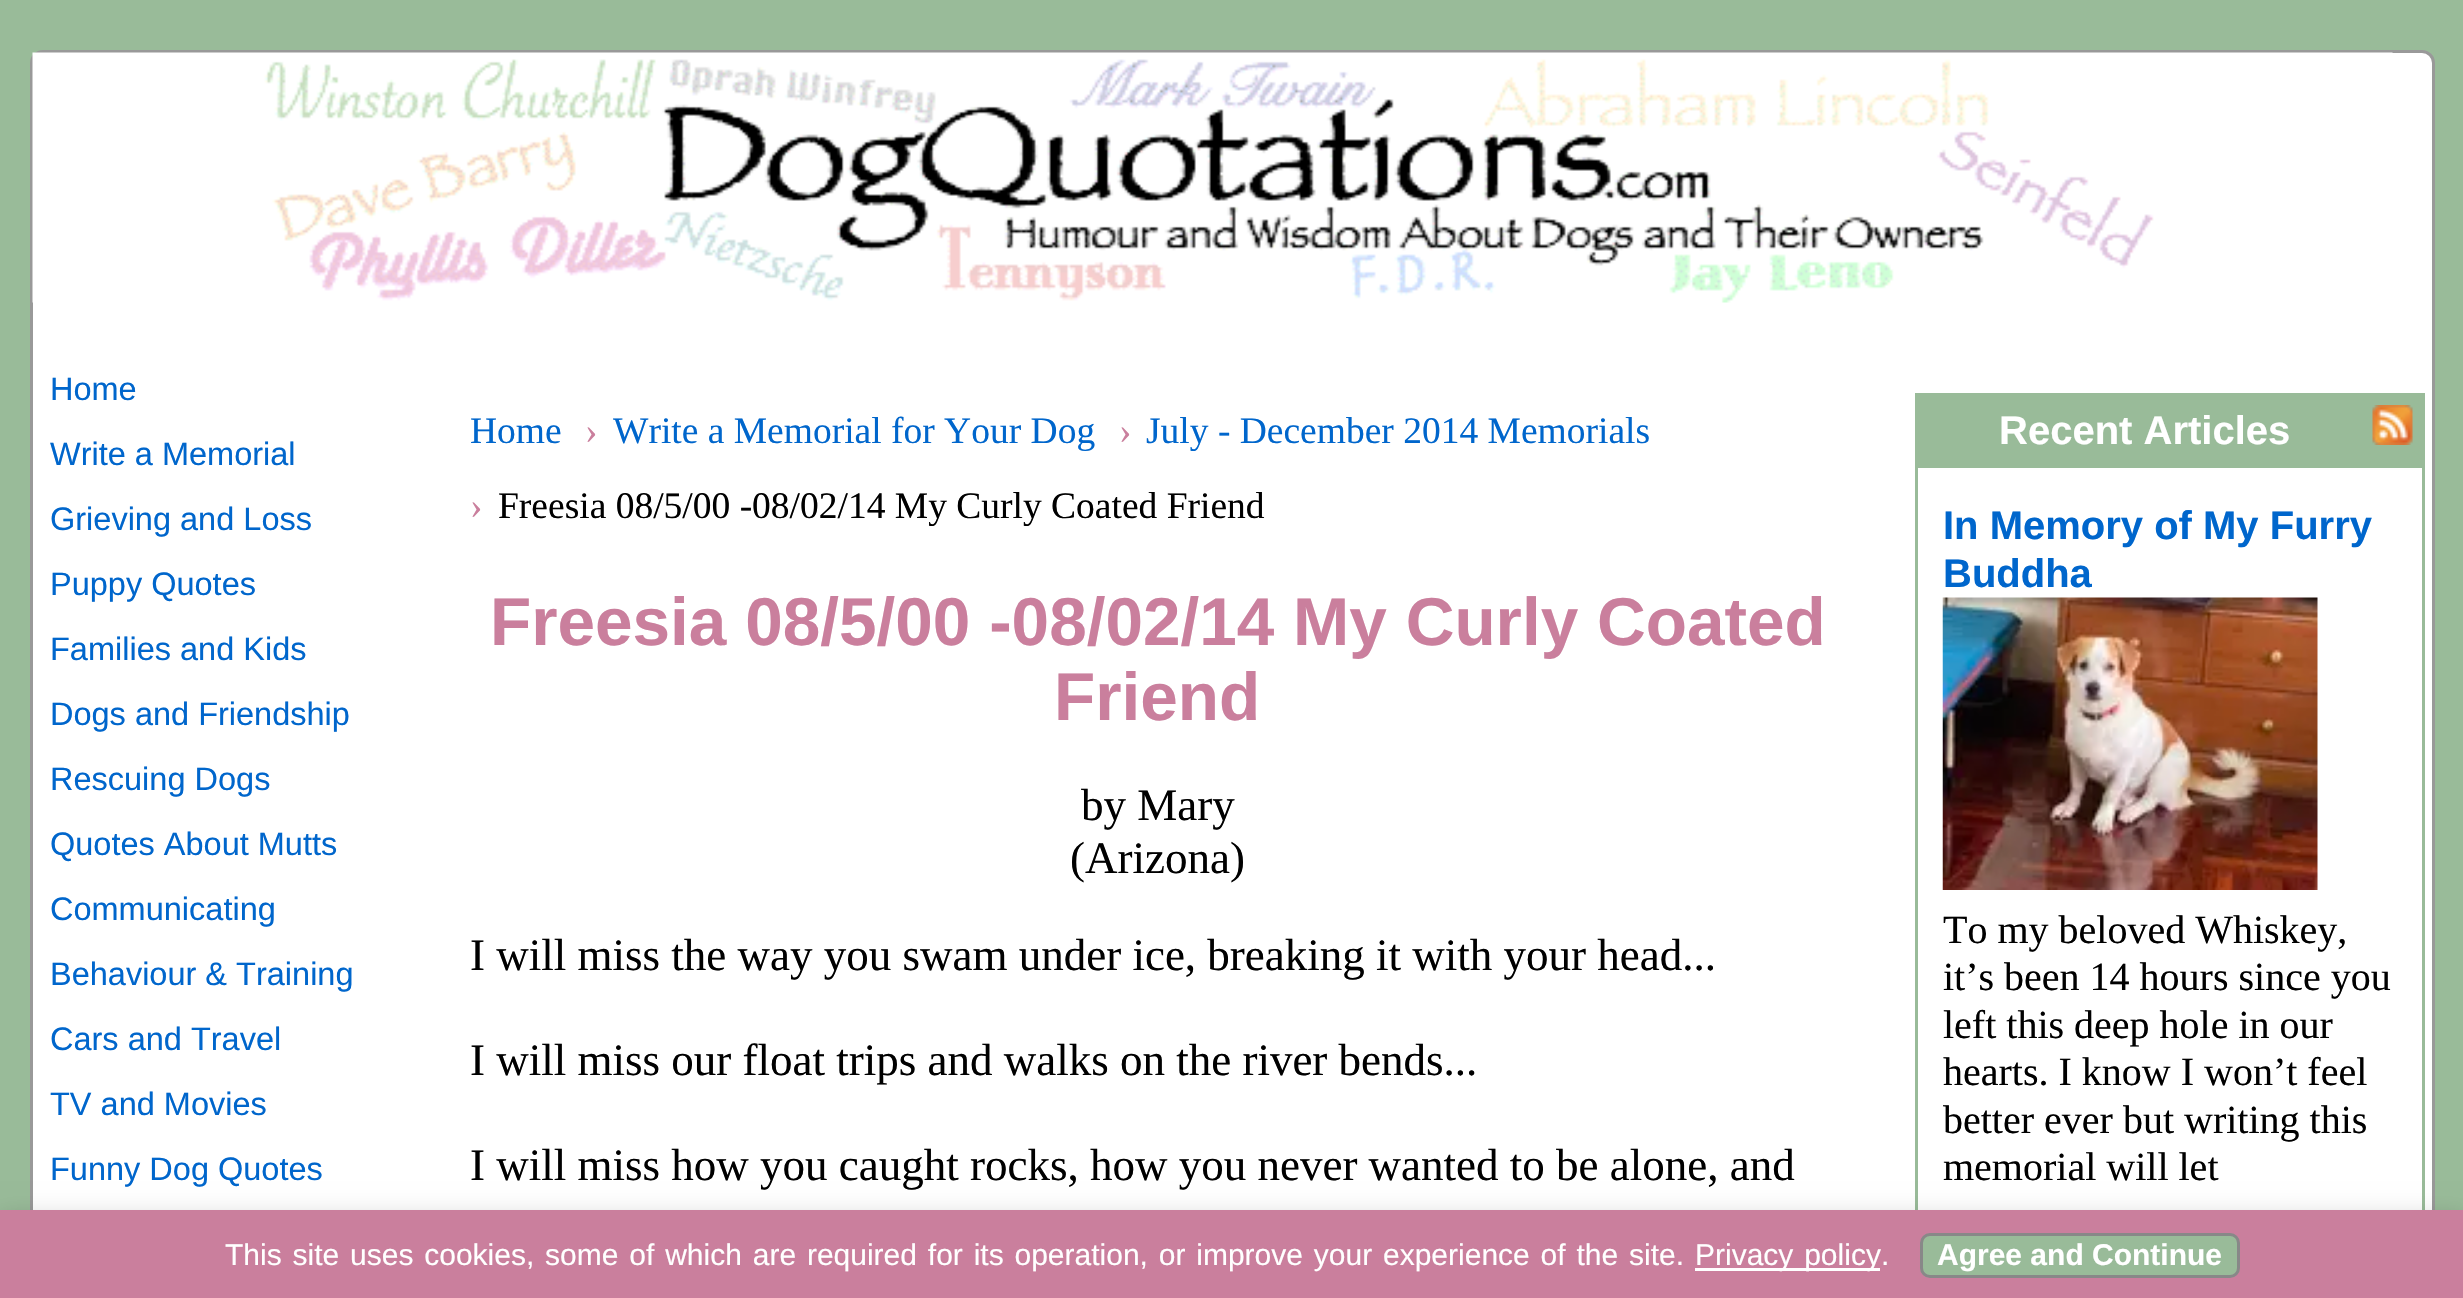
void draw(SkCanvas* canvas) {
    SkPaint paint;
    paint.setAntiAlias(true);
    auto face = [&](const char* family, int weight, float size, bool italic = false) {
        SkFontStyle style(weight, SkFontStyle::kNormal_Width,
            italic ? SkFontStyle::kItalic_Slant : SkFontStyle::kUpright_Slant);
        SkFont result(fontMgr->matchFamilyStyle(family, style), size);
        result.setSubpixel(true);
        return result;
    };
    auto write = [&](const char* s, float x, float y, const SkFont& font, SkColor color) {
        SkPaint ink(SkColor4f::FromColor(color));
        ink.setAntiAlias(true);
        canvas->drawString(s, x, y, font, ink);
    };
    auto writeSpaced = [&](const char* s, float x, float y, const SkFont& font, const SkPaint& ink, float letter, float word) {
        std::vector<SkGlyphID> glyphs(font.countText(s, strlen(s), SkTextEncoding::kUTF8));
        std::vector<float> xs(glyphs.size());
        font.textToGlyphs(s, strlen(s), SkTextEncoding::kUTF8, glyphs);
        font.getXPos(glyphs, xs, x);
        float extra = 0;
        for (size_t i = 0; i < glyphs.size(); i++) {
            xs[i] += extra;
            extra += letter + word * (glyphs[i] == font.unicharToGlyph(' '));
        }
        canvas->drawTextBlob(SkTextBlob::MakeFromPosHGlyphs(glyphs, xs, y, font), 0, 0, ink);
    };
    auto block = [&](float x, float y, float w, float h, SkColor color) {
        SkPaint ink(SkColor4f::FromColor(color));
        ink.setAntiAlias(true);
        canvas->drawRect(SkRect::MakeXYWH(x, y, w, h), ink);
    };
    auto paste = [&](const char* path, float x, float y, float w, float h) {
        auto image = SkImages::DeferredFromEncodedData(SkData::MakeFromFileName(path));
        canvas->drawImageRect(image, SkRect::MakeXYWH(x, y, w, h), SkSamplingOptions());
    };
    canvas->clear(SkColorSetRGB(153, 187, 153));
    paint.setColor(SK_ColorWHITE);
    canvas->drawRoundRect(SkRect::MakeXYWH(31.5f, 51.5f, 2402, 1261), 11.5f, 11.5f, paint);
    paint.setStyle(SkPaint::kStroke_Style);
    paint.setStrokeWidth(3);
    paint.setColor(SkColorSetRGB(153, 153, 153));
    canvas->drawRoundRect(SkRect::MakeXYWH(31.5f, 51.5f, 2402, 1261), 11.5f, 11.5f, paint);
    paste("pic1.png", 32, 52, 2361, 251);
    auto kFont1 = face("Liberation Sans", 400, 32.5f);
    write("Home", 50, 400, kFont1, SkColorSetRGB(0, 102, 204));
    write("Write a Memorial", 50, 465, kFont1, SkColorSetRGB(0, 102, 204));
    write("Grieving and Loss", 50, 530, kFont1, SkColorSetRGB(0, 102, 204));
    write("Puppy Quotes", 50, 595, kFont1, SkColorSetRGB(0, 102, 204));
    write("Families and Kids", 50, 660, kFont1, SkColorSetRGB(0, 102, 204));
    write("Dogs and Friendship", 50, 725, kFont1, SkColorSetRGB(0, 102, 204));
    write("Rescuing Dogs", 50, 790, kFont1, SkColorSetRGB(0, 102, 204));
    write("Quotes About Mutts", 50, 855, kFont1, SkColorSetRGB(0, 102, 204));
    write("Communicating", 50, 920, kFont1, SkColorSetRGB(0, 102, 204));
    write("Behaviour & Training", 50, 985, kFont1, SkColorSetRGB(0, 102, 204));
    write("Cars and Travel", 50, 1050, kFont1, SkColorSetRGB(0, 102, 204));
    write("TV and Movies", 50, 1115, kFont1, SkColorSetRGB(0, 102, 204));
    write("Funny Dog Quotes", 50, 1180, kFont1, SkColorSetRGB(0, 102, 204));
    auto kFont2 = face("Liberation Serif", 400, 37.5f);
    write("Home", 470, 443, kFont2, SkColorSetRGB(0, 102, 204));
    write("›", 585, 443, kFont2, SkColorSetRGB(202, 127, 157));
    write("Write a Memorial for Your Dog", 613, 443, kFont2, SkColorSetRGB(0, 102, 204));
    write("›", 1119, 443, kFont2, SkColorSetRGB(202, 127, 157));
    write("July - December 2014 Memorials", 1146, 443, kFont2, SkColorSetRGB(0, 102, 204));
    write("›", 470, 518, kFont2, SkColorSetRGB(202, 127, 157));
    write("Freesia 08/5/00 -08/02/14 My Curly Coated Friend", 498, 518, kFont2, SK_ColorBLACK);
    auto kFont3 = face("Liberation Sans", 700, 67.5f);
    write("Freesia 08/5/00 -08/02/14 My Curly Coated", 490, 645, kFont3, SkColorSetRGB(202, 127, 157));
    write("Friend", 1054, 720, kFont3, SkColorSetRGB(202, 127, 157));
    auto kFont4 = face("Liberation Serif", 400, 45);
    write("by Mary", 1081, 820, kFont4, SK_ColorBLACK);
    write("(Arizona)", 1070, 873, kFont4, SK_ColorBLACK);
    write("I will miss the way you swam under ice, breaking it with your head...", 470, 970, kFont4, SK_ColorBLACK);
    write("I will miss our float trips and walks on the river bends...", 470, 1075, kFont4, SK_ColorBLACK);
    write("I will miss how you caught rocks, how you never wanted to be alone, and", 470, 1180, kFont4, SK_ColorBLACK);
    paint.setColor(SkColorSetRGB(153, 187, 153));
    canvas->drawRect(SkRect::MakeXYWH(1916.5f, 394.5f, 507, 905), paint);
    block(1918, 396, 504, 72, SkColorSetRGB(153, 187, 153));
    auto kFont5 = face("Liberation Sans", 700, 40);
    write("Recent Articles", 1999, 444, kFont5, SK_ColorWHITE);
    paste("pic2.png", 2372, 405, 41, 40);
    write("In Memory of My Furry", 1943, 539, kFont5, SkColorSetRGB(0, 102, 204));
    write("Buddha", 1943, 587, kFont5, SkColorSetRGB(0, 102, 204));
    paste("pic3.png", 1942, 597, 376, 293);
    auto kFont6 = face("Liberation Serif", 400, 40);
    write("To my beloved Whiskey,", 1943, 943, kFont6, SK_ColorBLACK);
    write("it’s been 14 hours since you", 1943, 990, kFont6, SK_ColorBLACK);
    write("left this deep hole in our", 1943, 1038, kFont6, SK_ColorBLACK);
    write("hearts. I know I won’t feel", 1943, 1085, kFont6, SK_ColorBLACK);
    write("better ever but writing this", 1943, 1133, kFont6, SK_ColorBLACK);
    write("memorial will let", 1943, 1180, kFont6, SK_ColorBLACK);
    paint.setStyle(SkPaint::kFill_Style);
    paint.setColor(SkColorSetARGB(51, 0, 0, 0));
    paint.setMaskFilter(SkMaskFilter::MakeBlur(kNormal_SkBlurStyle, 12.5f));
    canvas->drawRect(SkRect::MakeXYWH(-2, 1218, 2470, 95), paint);
    paint.setMaskFilter(nullptr);
    block(0, 1210, 2463, 88, SkColorSetRGB(202, 127, 157));
    auto kFont7 = face("Liberation Sans", 400, 30);
    paint.setColor(SK_ColorWHITE);
    writeSpaced("This site uses cookies, some of which are required for its operation, or improve your experience of the site.", 225, 1265, kFont7, paint, 0, 2.5f);
    block(1695, 1268, 185, 3, SK_ColorWHITE);
    writeSpaced("Privacy policy", 1695, 1265, kFont7, paint, 0, 2.5f);
    write(".", 1881, 1265, kFont7, SK_ColorWHITE);
    paint.setColor(SkColorSetRGB(153, 187, 153));
    canvas->drawRoundRect(SkRect::MakeXYWH(1921.5f, 1234.5f, 317, 42), 8.5f, 8.5f, paint);
    paint.setStyle(SkPaint::kStroke_Style);
    paint.setColor(SkColorSetRGB(136, 136, 136));
    canvas->drawRoundRect(SkRect::MakeXYWH(1921.5f, 1234.5f, 317, 42), 8.5f, 8.5f, paint);
    auto kFont8 = face("Liberation Sans", 700, 30);
    write("Agree and Continue", 1937, 1265, kFont8, SK_ColorWHITE);
}
